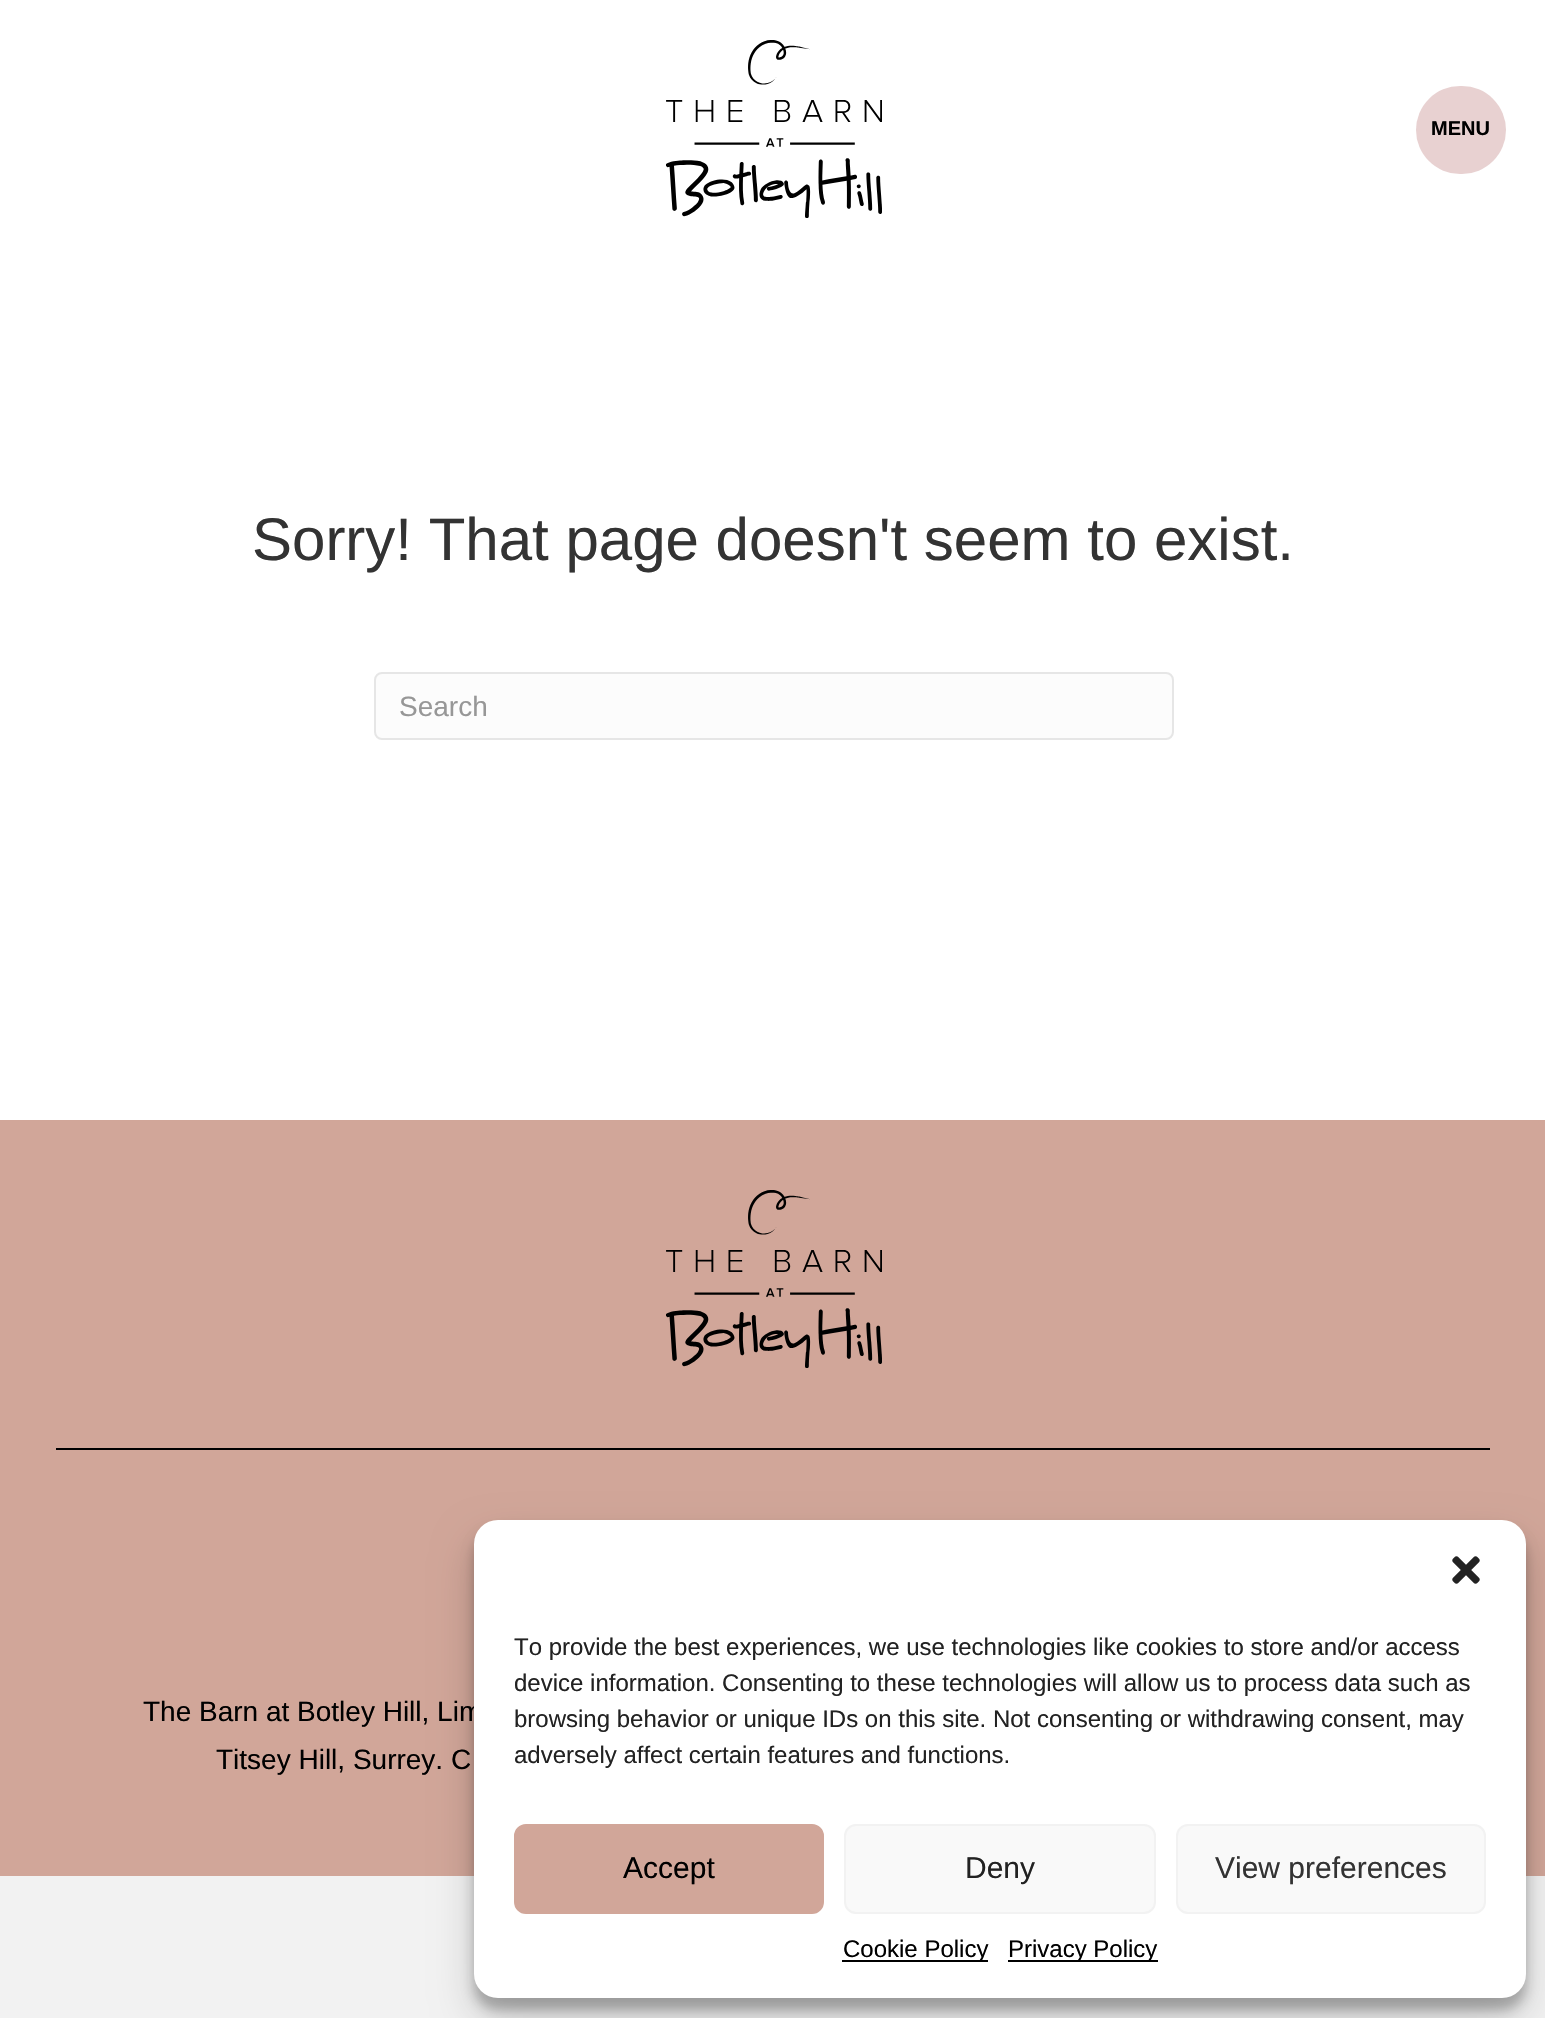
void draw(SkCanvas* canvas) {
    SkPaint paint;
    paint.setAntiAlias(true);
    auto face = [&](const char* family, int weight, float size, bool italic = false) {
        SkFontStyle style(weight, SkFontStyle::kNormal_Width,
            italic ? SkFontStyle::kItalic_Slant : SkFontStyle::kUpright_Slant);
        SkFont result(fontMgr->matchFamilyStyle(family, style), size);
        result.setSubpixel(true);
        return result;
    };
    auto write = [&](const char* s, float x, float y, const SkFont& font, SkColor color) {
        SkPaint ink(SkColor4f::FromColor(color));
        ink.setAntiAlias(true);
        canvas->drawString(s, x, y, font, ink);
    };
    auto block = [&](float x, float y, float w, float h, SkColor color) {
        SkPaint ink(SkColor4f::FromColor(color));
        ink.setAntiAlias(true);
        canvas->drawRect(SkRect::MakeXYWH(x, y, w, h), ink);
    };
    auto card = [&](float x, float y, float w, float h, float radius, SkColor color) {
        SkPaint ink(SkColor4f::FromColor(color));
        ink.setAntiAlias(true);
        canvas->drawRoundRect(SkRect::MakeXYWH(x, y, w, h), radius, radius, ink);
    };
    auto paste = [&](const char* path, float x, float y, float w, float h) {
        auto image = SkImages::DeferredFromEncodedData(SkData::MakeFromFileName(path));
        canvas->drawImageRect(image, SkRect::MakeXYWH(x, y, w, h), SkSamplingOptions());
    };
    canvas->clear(SkColorSetRGB(242, 242, 242));
    block(0, 0, 1545, 1120, SK_ColorWHITE);
    paste("pic1.png", 666, 40, 216, 178);
    card(1416, 86, 90, 88, 44, SkColorSetRGB(232, 209, 209));
    auto kFont1 = face("Liberation Sans", 700, 20);
    write("MENU", 1431, 135, kFont1, SK_ColorBLACK);
    auto kFont2 = face("Liberation Sans", 400, 60);
    write("Sorry! That page doesn't seem to exist.", 252, 560, kFont2, SkColorSetRGB(51, 51, 51));
    paint.setColor(SkColorSetRGB(252, 252, 252));
    canvas->drawRoundRect(SkRect::MakeXYWH(375, 673, 798, 66), 7, 7, paint);
    paint.setStyle(SkPaint::kStroke_Style);
    paint.setStrokeWidth(2);
    paint.setColor(SkColorSetRGB(230, 230, 230));
    canvas->drawRoundRect(SkRect::MakeXYWH(375, 673, 798, 66), 7, 7, paint);
    auto kFont3 = face("Liberation Sans", 400, 28);
    write("Search", 399, 716, kFont3, SkColorSetRGB(151, 151, 151));
    block(0, 1120, 1545, 756, SkColorSetRGB(209, 166, 153));
    paste("pic2.png", 666, 1190, 216, 178);
    block(56, 1448, 1434, 2, SK_ColorBLACK);
    write("The Barn at Botley Hill, Lim", 143, 1721, kFont3, SK_ColorBLACK);
    write("Titsey Hill, Surrey. C", 216, 1769, kFont3, SK_ColorBLACK);
    paint.setStyle(SkPaint::kFill_Style);
    paint.setColor(SkColorSetARGB(59, 0, 0, 0));
    paint.setMaskFilter(SkMaskFilter::MakeBlur(kNormal_SkBlurStyle, 6));
    canvas->drawRoundRect(SkRect::MakeXYWH(474, 1532, 1052, 478), 24, 24, paint);
    paint.setMaskFilter(nullptr);
    paint.setColor(SkColorSetARGB(48, 0, 0, 0));
    paint.setMaskFilter(SkMaskFilter::MakeBlur(kNormal_SkBlurStyle, 20));
    canvas->drawRoundRect(SkRect::MakeXYWH(474, 1540, 1052, 478), 24, 24, paint);
    paint.setMaskFilter(nullptr);
    card(474, 1520, 1052, 478, 24, SK_ColorWHITE);
    paste("pic3.png", 1452, 1556, 28, 28);
    auto kFont4 = face("Liberation Sans", 400, 24);
    write("To provide the best experiences, we use technologies like cookies to store and/or access", 514, 1655, kFont4, SkColorSetRGB(34, 34, 34));
    write("device information. Consenting to these technologies will allow us to process data such as", 514, 1691, kFont4, SkColorSetRGB(34, 34, 34));
    write("browsing behavior or unique IDs on this site. Not consenting or withdrawing consent, may", 514, 1727, kFont4, SkColorSetRGB(34, 34, 34));
    write("adversely affect certain features and functions.", 514, 1763, kFont4, SkColorSetRGB(34, 34, 34));
    paint.setColor(SkColorSetRGB(209, 166, 153));
    canvas->drawRoundRect(SkRect::MakeXYWH(515, 1825, 308, 88), 11, 11, paint);
    paint.setStyle(SkPaint::kStroke_Style);
    canvas->drawRoundRect(SkRect::MakeXYWH(515, 1825, 308, 88), 11, 11, paint);
    auto kFont5 = face("Liberation Sans", 400, 30);
    write("Accept", 623, 1878, kFont5, SK_ColorBLACK);
    paint.setStyle(SkPaint::kFill_Style);
    paint.setColor(SkColorSetRGB(249, 249, 249));
    canvas->drawRoundRect(SkRect::MakeXYWH(845, 1825, 310, 88), 11, 11, paint);
    paint.setStyle(SkPaint::kStroke_Style);
    paint.setColor(SkColorSetRGB(242, 242, 242));
    canvas->drawRoundRect(SkRect::MakeXYWH(845, 1825, 310, 88), 11, 11, paint);
    write("Deny", 965, 1878, kFont5, SkColorSetRGB(34, 34, 34));
    paint.setStyle(SkPaint::kFill_Style);
    paint.setColor(SkColorSetRGB(249, 249, 249));
    canvas->drawRoundRect(SkRect::MakeXYWH(1177, 1825, 308, 88), 11, 11, paint);
    paint.setStyle(SkPaint::kStroke_Style);
    paint.setColor(SkColorSetRGB(242, 242, 242));
    canvas->drawRoundRect(SkRect::MakeXYWH(1177, 1825, 308, 88), 11, 11, paint);
    write("View preferences", 1215, 1878, kFont5, SkColorSetRGB(51, 51, 51));
    block(842, 1960, 146, 2, SK_ColorBLACK);
    write("Cookie Policy", 843, 1957, kFont4, SK_ColorBLACK);
    block(1008, 1960, 150, 2, SK_ColorBLACK);
    write("Privacy Policy", 1008, 1957, kFont4, SK_ColorBLACK);
}
